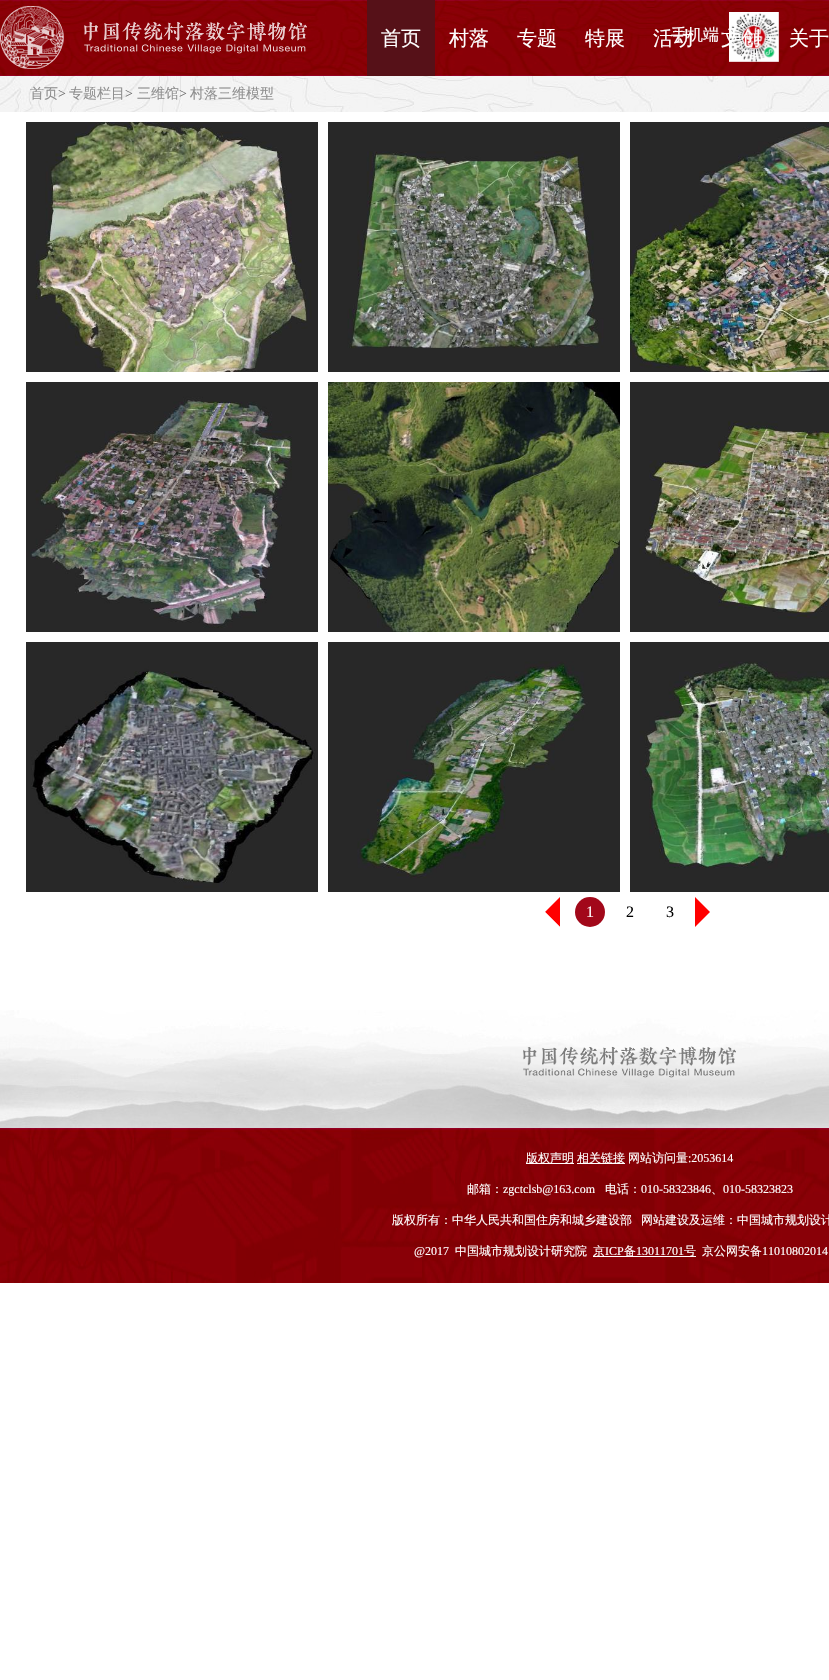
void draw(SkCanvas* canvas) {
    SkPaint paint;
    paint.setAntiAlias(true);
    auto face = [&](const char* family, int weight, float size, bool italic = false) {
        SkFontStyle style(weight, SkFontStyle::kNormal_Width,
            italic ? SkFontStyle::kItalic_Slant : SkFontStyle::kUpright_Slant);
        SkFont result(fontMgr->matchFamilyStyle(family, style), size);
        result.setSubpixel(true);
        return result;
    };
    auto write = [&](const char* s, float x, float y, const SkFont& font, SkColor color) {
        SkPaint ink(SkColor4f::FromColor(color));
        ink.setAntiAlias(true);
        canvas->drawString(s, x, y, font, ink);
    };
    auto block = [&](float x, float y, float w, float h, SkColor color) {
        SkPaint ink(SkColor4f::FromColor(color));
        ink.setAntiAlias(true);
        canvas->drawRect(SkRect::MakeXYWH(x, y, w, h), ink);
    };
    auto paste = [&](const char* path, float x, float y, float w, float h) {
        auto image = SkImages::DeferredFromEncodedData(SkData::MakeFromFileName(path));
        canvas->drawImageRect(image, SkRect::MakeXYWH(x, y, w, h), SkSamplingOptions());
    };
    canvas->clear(SK_ColorWHITE);
    paste("pic1.png", 0, 0, 829, 76);
    auto kFont1 = face("WenQuanYi Zen Hei", 500, 16);
    write("手机端", 671, 40, kFont1, SK_ColorWHITE);
    paste("pic2.png", 729, 12, 50, 50);
    paste("pic3.png", 0, 6, 307, 63);
    block(367, 0, 68, 76, SkColorSetRGB(86, 17, 24));
    auto kFont2 = face("WenQuanYi Zen Hei", 500, 20);
    write("首页", 381, 45, kFont2, SK_ColorWHITE);
    write("村落", 449, 45, kFont2, SK_ColorWHITE);
    write("专题", 517, 45, kFont2, SK_ColorWHITE);
    write("特展", 585, 45, kFont2, SK_ColorWHITE);
    write("活动", 653, 45, kFont2, SK_ColorWHITE);
    write("文创", 721, 45, kFont2, SK_ColorWHITE);
    write("关于", 789, 45, kFont2, SK_ColorWHITE);
    paste("pic4.png", 0, 76, 829, 36);
    auto kFont3 = face("WenQuanYi Zen Hei", 500, 14);
    write("首页", 30, 98, kFont3, SkColorSetRGB(143, 143, 143));
    auto kFont4 = face("Liberation Serif", 400, 14);
    write(">", 58, 98, kFont4, SkColorSetRGB(107, 107, 107));
    write("专题栏目", 69, 98, kFont3, SkColorSetRGB(143, 143, 143));
    write(">", 125, 98, kFont4, SkColorSetRGB(107, 107, 107));
    write("三维馆", 137, 98, kFont3, SkColorSetRGB(143, 143, 143));
    write(">", 179, 98, kFont4, SkColorSetRGB(107, 107, 107));
    write("村落三维模型", 190, 98, kFont3, SkColorSetRGB(143, 143, 143));
    paste("pic5.png", 26, 122, 292, 250);
    paste("pic6.png", 328, 122, 292, 250);
    paste("pic7.png", 630, 122, 199, 250);
    paste("pic8.png", 26, 382, 292, 250);
    paste("pic9.png", 328, 382, 292, 250);
    paste("pic10.png", 630, 382, 199, 250);
    paste("pic11.png", 26, 642, 292, 250);
    paste("pic12.png", 328, 642, 292, 250);
    paste("pic13.png", 630, 642, 199, 250);
    paint.setColor(SkColorSetRGB(255, 0, 0));
    canvas->drawPath(SkPathBuilder().moveTo(560, 897).lineTo(560, 927).lineTo(545, 912).close().detach(), paint);
    paint.setColor(SK_ColorWHITE);
    canvas->drawPath(SkPathBuilder().moveTo(560, 927).lineTo(530, 927).lineTo(545, 912).close().detach(), paint);
    paint.setColor(SkColorSetRGB(162, 8, 26));
    canvas->drawCircle(590, 912, 15, paint);
    auto kFont5 = face("Liberation Serif", 400, 16);
    write("1", 586, 917, kFont5, SK_ColorWHITE);
    write("2", 626, 917, kFont5, SK_ColorBLACK);
    write("3", 666, 917, kFont5, SK_ColorBLACK);
    paint.setColor(SkColorSetRGB(255, 0, 0));
    canvas->drawPath(SkPathBuilder().moveTo(695, 927).lineTo(695, 897).lineTo(710, 912).close().detach(), paint);
    paste("pic14.png", 0, 1010, 829, 118);
    paste("pic15.png", 523, 1046, 213, 32);
    paste("pic16.png", 0, 1128, 829, 155);
    block(526, 1163, 48, 1, SK_ColorWHITE);
    auto kFont6 = face("WenQuanYi Zen Hei", 500, 12);
    write("版权声明", 526, 1162, kFont6, SK_ColorWHITE);
    block(577, 1163, 48, 1, SK_ColorWHITE);
    write("相关链接", 577, 1162, kFont6, SK_ColorWHITE);
    write("网站访问量", 628, 1162, kFont6, SK_ColorWHITE);
    auto kFont7 = face("Liberation Serif", 400, 12);
    write(":2053614", 688, 1162, kFont7, SK_ColorWHITE);
    write("邮箱：", 467, 1193, kFont6, SK_ColorWHITE);
    write("zgctclsb@163.com", 503, 1193, kFont7, SK_ColorWHITE);
    write("电话：", 605, 1193, kFont6, SK_ColorWHITE);
    write("010-58323846", 641, 1193, kFont7, SK_ColorWHITE);
    write("、", 711, 1193, kFont6, SK_ColorWHITE);
    write("010-58323823", 723, 1193, kFont7, SK_ColorWHITE);
    write("版权所有：中华人民共和国住房和城乡建设部", 392, 1224, kFont6, SK_ColorWHITE);
    write("网站建设及运维：中国城市规划设计", 641, 1224, kFont6, SK_ColorWHITE);
    write("@2017", 414, 1255, kFont7, SK_ColorWHITE);
    write("中国城市规划设计研究院", 455, 1255, kFont6, SK_ColorWHITE);
    block(593, 1256, 103, 1, SK_ColorWHITE);
    write("京", 593, 1255, kFont6, SK_ColorWHITE);
    write("ICP", 605, 1255, kFont7, SK_ColorWHITE);
    write("备", 624, 1255, kFont6, SK_ColorWHITE);
    write("13011701", 636, 1255, kFont7, SK_ColorWHITE);
    write("号", 684, 1255, kFont6, SK_ColorWHITE);
    write("京公网安备", 702, 1255, kFont6, SK_ColorWHITE);
    write("11010802014", 762, 1255, kFont7, SK_ColorWHITE);
}
